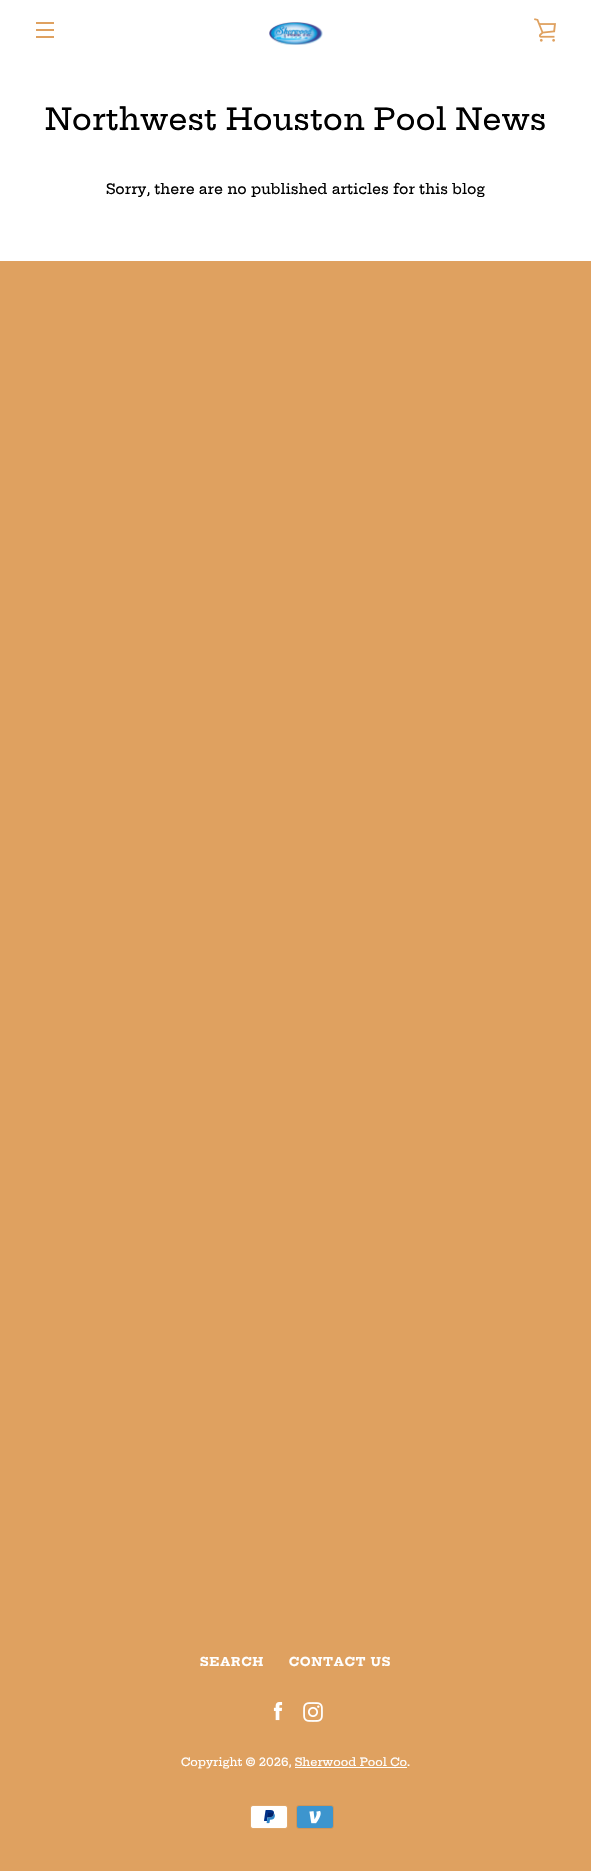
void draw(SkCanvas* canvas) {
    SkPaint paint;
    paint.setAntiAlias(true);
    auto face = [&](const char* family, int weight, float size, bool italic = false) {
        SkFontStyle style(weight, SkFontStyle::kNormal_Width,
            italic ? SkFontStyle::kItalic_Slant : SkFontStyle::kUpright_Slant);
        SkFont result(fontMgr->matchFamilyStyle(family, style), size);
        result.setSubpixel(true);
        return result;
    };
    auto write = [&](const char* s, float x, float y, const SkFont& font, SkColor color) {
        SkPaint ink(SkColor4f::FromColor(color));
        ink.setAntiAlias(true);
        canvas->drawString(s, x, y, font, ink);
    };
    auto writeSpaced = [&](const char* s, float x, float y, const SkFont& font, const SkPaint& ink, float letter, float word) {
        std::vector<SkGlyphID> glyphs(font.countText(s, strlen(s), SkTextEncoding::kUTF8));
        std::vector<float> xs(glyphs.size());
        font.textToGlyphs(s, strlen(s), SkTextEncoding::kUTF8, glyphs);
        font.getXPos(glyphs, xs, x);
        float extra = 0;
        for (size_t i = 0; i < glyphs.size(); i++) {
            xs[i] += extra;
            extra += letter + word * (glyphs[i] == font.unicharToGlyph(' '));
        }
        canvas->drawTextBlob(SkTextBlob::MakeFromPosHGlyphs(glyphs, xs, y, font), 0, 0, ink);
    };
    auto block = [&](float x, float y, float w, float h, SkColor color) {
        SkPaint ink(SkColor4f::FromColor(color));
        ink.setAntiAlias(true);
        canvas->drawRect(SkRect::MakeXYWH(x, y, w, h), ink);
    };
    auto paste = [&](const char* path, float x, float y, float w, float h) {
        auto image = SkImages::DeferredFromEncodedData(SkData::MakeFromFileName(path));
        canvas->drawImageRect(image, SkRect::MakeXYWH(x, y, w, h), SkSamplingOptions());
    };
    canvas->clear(SkColorSetRGB(223, 161, 96));
    block(0, 0, 591, 261, SK_ColorWHITE);
    block(36, 22, 18, 2, SkColorSetRGB(223, 161, 96));
    block(36, 29, 18, 2, SkColorSetRGB(223, 161, 96));
    block(36, 36, 18, 2, SkColorSetRGB(223, 161, 96));
    paste("pic1.png", 269, 22, 54, 23);
    paste("pic2.png", 534, 18, 22, 24);
    auto kFont1 = face("Hepta Slab", 500, 30);
    write("Northwest Houston Pool News", 45, 130, kFont1, SK_ColorBLACK);
    auto kFont2 = face("Hepta Slab", 500, 14);
    write("Sorry, there are no published articles for this blog", 106, 194, kFont2, SK_ColorBLACK);
    auto kFont3 = face("Hepta Slab", 700, 12);
    paint.setColor(SK_ColorWHITE);
    writeSpaced("SEARCH", 200, 1666, kFont3, paint, 1, 0);
    writeSpaced("CONTACT US", 289, 1666, kFont3, paint, 1, 0);
    paste("pic3.png", 273, 1702, 10, 19);
    paste("pic4.png", 303, 1702, 20, 20);
    auto kFont4 = face("Hepta Slab", 500, 11.2f);
    write("Copyright © 2026, Sherwood Pool Co.", 181, 1766, kFont4, SK_ColorWHITE);
    block(295, 1767, 112, 1, SK_ColorWHITE);
    paste("pic5.png", 250, 1805, 38, 24);
    paste("pic6.png", 296, 1805, 38, 24);
}
